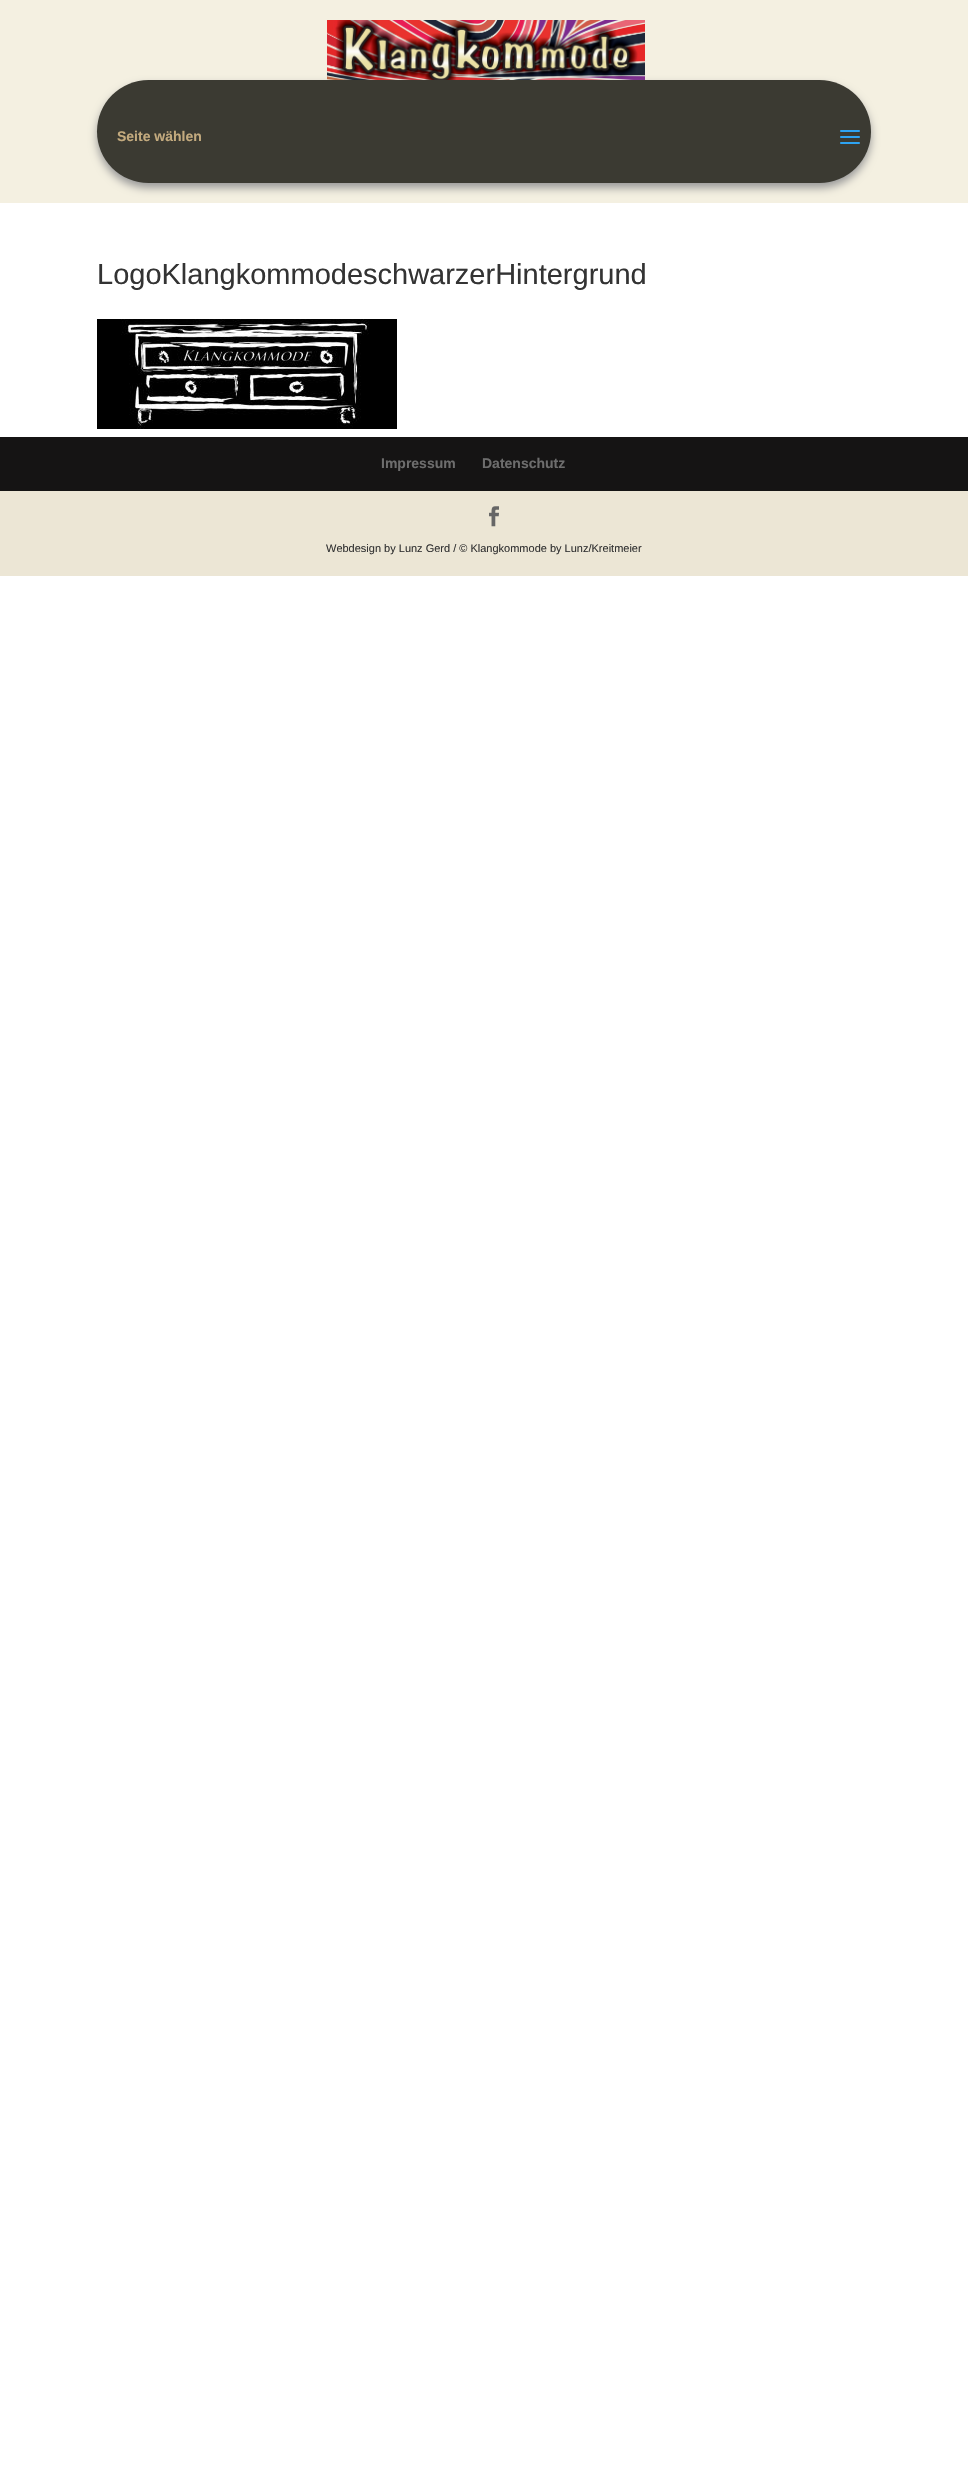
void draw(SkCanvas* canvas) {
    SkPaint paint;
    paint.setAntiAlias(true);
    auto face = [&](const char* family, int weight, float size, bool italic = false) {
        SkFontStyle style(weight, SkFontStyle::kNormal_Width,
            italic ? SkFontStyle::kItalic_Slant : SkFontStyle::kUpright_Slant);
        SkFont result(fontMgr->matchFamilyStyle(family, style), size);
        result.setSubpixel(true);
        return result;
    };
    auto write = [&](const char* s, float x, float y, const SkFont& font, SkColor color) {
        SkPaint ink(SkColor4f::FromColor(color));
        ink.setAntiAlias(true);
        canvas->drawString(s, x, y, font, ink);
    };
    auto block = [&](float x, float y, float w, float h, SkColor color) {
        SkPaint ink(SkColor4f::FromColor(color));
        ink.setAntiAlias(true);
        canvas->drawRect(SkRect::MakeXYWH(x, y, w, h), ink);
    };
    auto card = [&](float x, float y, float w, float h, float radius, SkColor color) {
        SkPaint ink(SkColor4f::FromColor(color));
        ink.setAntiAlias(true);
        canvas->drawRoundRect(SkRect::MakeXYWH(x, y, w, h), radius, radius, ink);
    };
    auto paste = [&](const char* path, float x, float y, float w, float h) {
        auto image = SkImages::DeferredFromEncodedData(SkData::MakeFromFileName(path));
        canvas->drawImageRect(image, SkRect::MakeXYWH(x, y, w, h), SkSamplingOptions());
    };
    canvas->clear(SK_ColorWHITE);
    block(0, 0, 968, 203, SkColorSetRGB(244, 240, 225));
    paste("pic1.png", 327, 20, 318, 60);
    paint.setColor(SkColorSetRGB(153, 153, 153));
    paint.setMaskFilter(SkMaskFilter::MakeBlur(kNormal_SkBlurStyle, 4));
    canvas->drawRoundRect(SkRect::MakeXYWH(97, 85, 774, 103), 51.5f, 51.5f, paint);
    paint.setMaskFilter(nullptr);
    card(97, 80, 774, 103, 51.5f, SkColorSetRGB(59, 58, 50));
    auto kFont1 = face("Liberation Sans", 700, 14);
    write("Seite wählen", 117, 141, kFont1, SkColorSetRGB(195, 170, 126));
    paste("pic2.png", 840, 130, 20, 14);
    auto kFont2 = face("Liberation Sans", 400, 29);
    write("LogoKlangkommodeschwarzerHintergrund", 97, 284, kFont2, SkColorSetRGB(51, 51, 51));
    paste("pic3.png", 97, 319, 300, 110);
    block(0, 437, 968, 54, SkColorSetRGB(21, 20, 20));
    write("Impressum", 381, 468, kFont1, SkColorSetRGB(109, 109, 109));
    write("Datenschutz", 482, 468, kFont1, SkColorSetRGB(109, 109, 109));
    block(0, 491, 968, 85, SkColorSetRGB(236, 230, 213));
    paste("pic4.png", 489, 506, 10, 21);
    auto kFont3 = face("Liberation Sans", 400, 11);
    write("Webdesign by Lunz Gerd / © Klangkommode by Lunz/Kreitmeier", 326, 552, kFont3, SkColorSetRGB(51, 51, 51));
}
